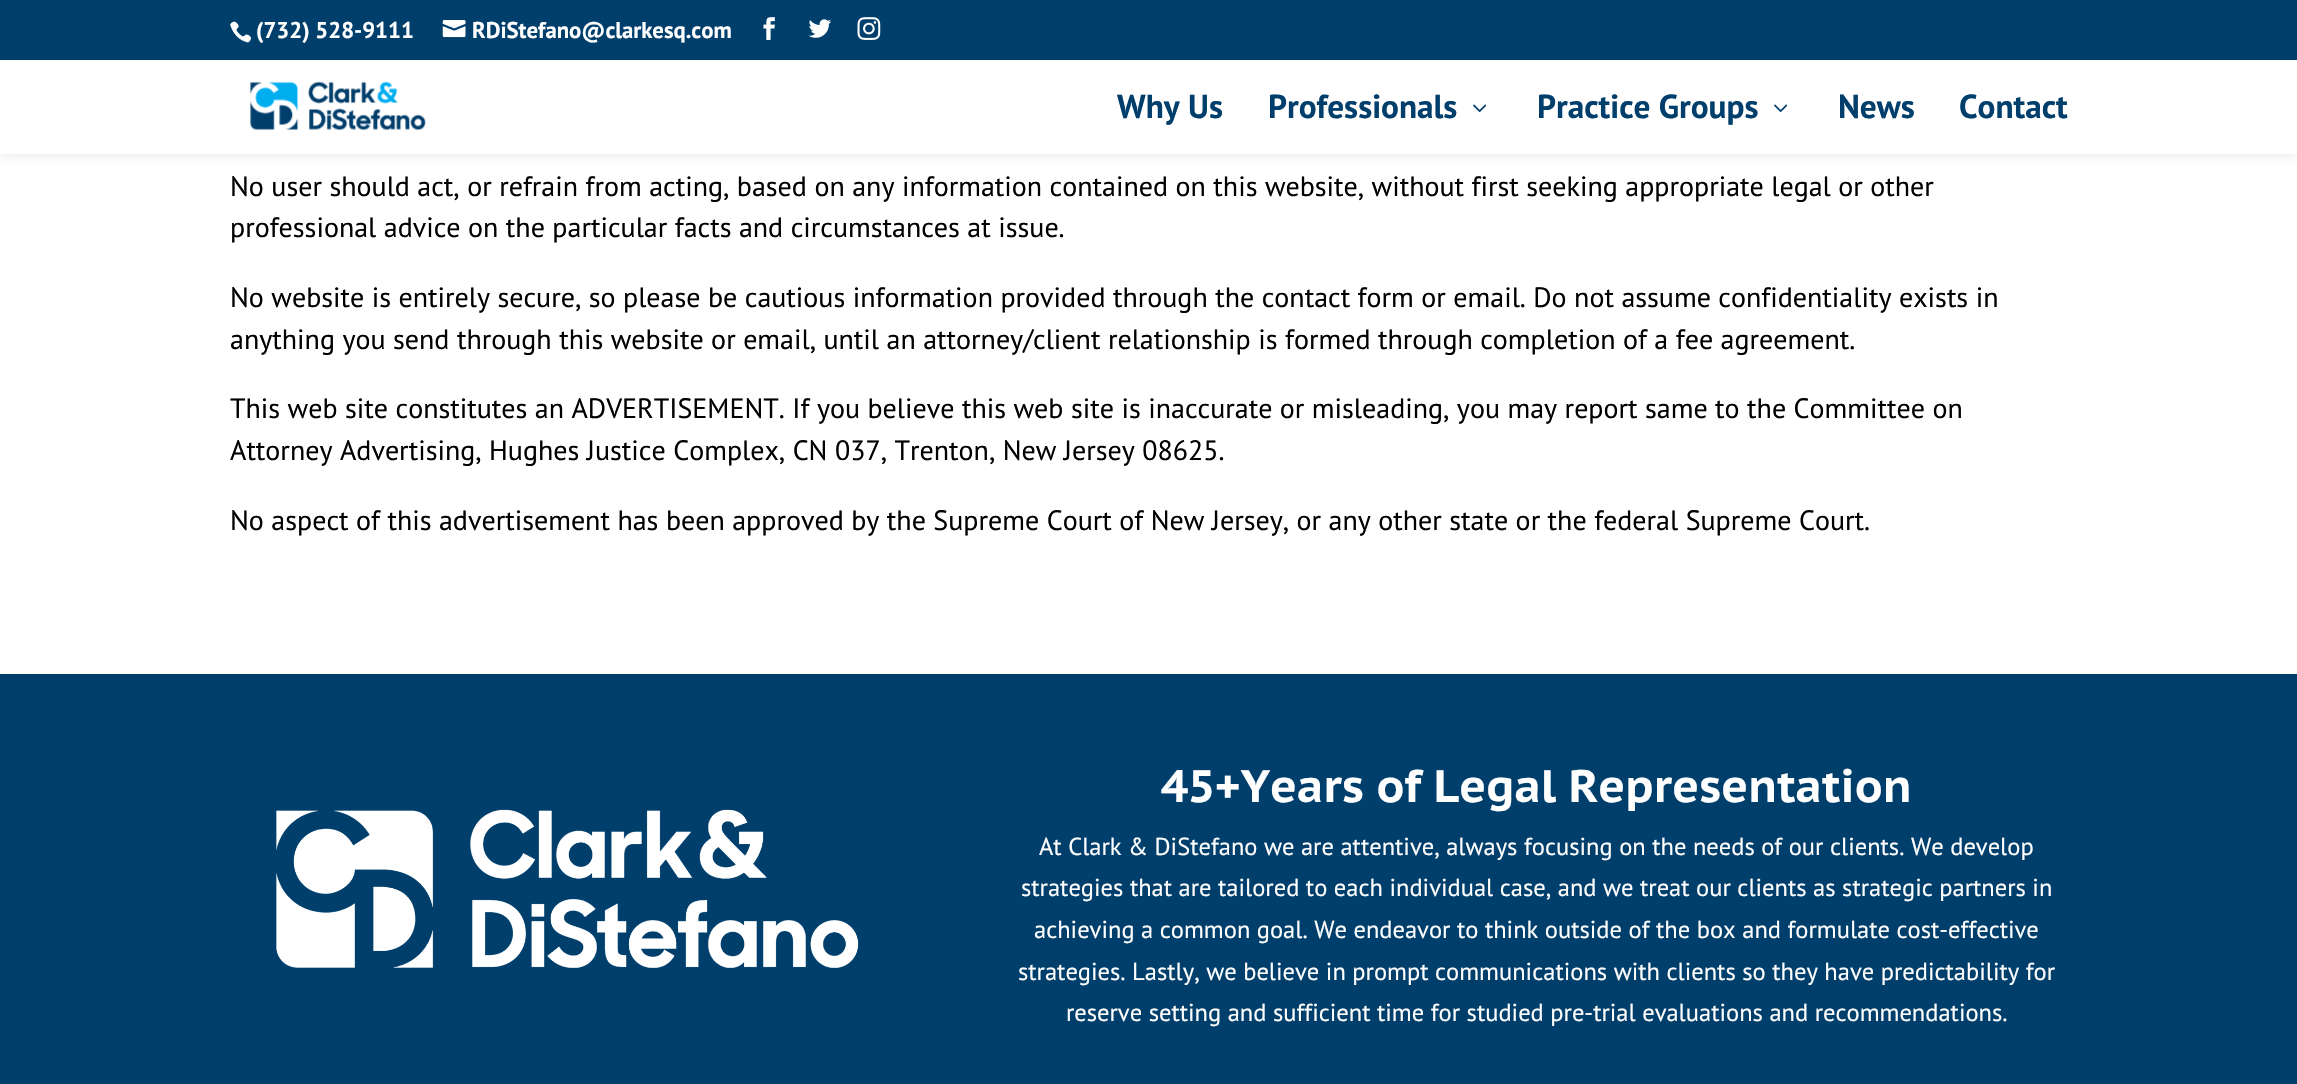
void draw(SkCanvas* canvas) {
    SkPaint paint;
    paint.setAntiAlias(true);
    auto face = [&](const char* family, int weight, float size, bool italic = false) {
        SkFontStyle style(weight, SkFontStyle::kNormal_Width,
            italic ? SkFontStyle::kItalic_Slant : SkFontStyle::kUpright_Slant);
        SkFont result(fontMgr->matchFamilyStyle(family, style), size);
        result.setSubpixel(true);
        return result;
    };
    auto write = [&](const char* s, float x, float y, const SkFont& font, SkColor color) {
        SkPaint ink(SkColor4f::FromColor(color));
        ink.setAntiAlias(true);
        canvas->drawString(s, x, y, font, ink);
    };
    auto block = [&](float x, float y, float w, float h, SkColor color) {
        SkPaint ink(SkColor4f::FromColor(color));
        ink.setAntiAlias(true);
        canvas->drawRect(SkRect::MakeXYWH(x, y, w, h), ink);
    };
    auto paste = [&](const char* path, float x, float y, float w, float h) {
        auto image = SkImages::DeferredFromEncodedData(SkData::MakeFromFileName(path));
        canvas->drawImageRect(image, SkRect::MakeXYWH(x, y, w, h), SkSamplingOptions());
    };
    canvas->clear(SK_ColorWHITE);
    paint.setColor(SkColorSetARGB(26, 0, 0, 0));
    paint.setMaskFilter(SkMaskFilter::MakeBlur(kNormal_SkBlurStyle, 6));
    canvas->drawRect(SkRect::MakeXYWH(0, 60, 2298, 94), paint);
    paint.setMaskFilter(nullptr);
    block(0, 0, 2297, 60, SkColorSetRGB(0, 62, 107));
    paste("pic1.png", 230, 21, 21, 22);
    auto kFont1 = face("PT Sans", 700, 22.75f);
    write("(732) 528-9111", 256, 38, kFont1, SK_ColorWHITE);
    paste("pic2.png", 442, 20, 24, 18);
    write("RDiStefano@clarkesq.com", 472, 38, kFont1, SK_ColorWHITE);
    paste("pic3.png", 763, 17, 12, 23);
    paste("pic4.png", 808, 19, 24, 19);
    paste("pic5.png", 857, 17, 24, 23);
    block(0, 60, 2297, 94, SK_ColorWHITE);
    paste("pic6.png", 250, 81, 176, 50);
    auto kFont2 = face("PT Sans", 700, 33.25f);
    write("Why Us", 1117, 118, kFont2, SkColorSetRGB(0, 62, 107));
    write("Professionals", 1268, 118, kFont2, SkColorSetRGB(0, 62, 107));
    paste("pic7.png", 1473, 104, 14, 8);
    write("Practice Groups", 1537, 118, kFont2, SkColorSetRGB(0, 62, 107));
    paste("pic7.png", 1774, 104, 14, 8);
    write("News", 1838, 118, kFont2, SkColorSetRGB(0, 62, 107));
    write("Contact", 1959, 118, kFont2, SkColorSetRGB(0, 62, 107));
    auto kFont3 = face("PT Sans", 400, 28);
    write("No user should act, or refrain from acting, based on any information contained on this website, without first seeking appropriate legal or other", 230, 196, kFont3, SK_ColorBLACK);
    write("professional advice on the particular facts and circumstances at issue.", 230, 237, kFont3, SK_ColorBLACK);
    write("No website is entirely secure, so please be cautious information provided through the contact form or email. Do not assume confidentiality exists in", 230, 307, kFont3, SK_ColorBLACK);
    write("anything you send through this website or email, until an attorney/client relationship is formed through completion of a fee agreement.", 230, 349, kFont3, SK_ColorBLACK);
    write("This web site constitutes an ADVERTISEMENT. If you believe this web site is inaccurate or misleading, you may report same to the Committee on", 230, 418, kFont3, SK_ColorBLACK);
    write("Attorney Advertising, Hughes Justice Complex, CN 037, Trenton, New Jersey 08625.", 230, 460, kFont3, SK_ColorBLACK);
    write("No aspect of this advertisement has been approved by the Supreme Court of New Jersey, or any other state or the federal Supreme Court.", 230, 530, kFont3, SK_ColorBLACK);
    block(0, 674, 2297, 410, SkColorSetRGB(0, 62, 107));
    paste("pic8.png", 276, 809, 583, 160);
    auto kFont4 = face("PT Sans Caption", 700, 45.5f);
    write("45+Years of Legal Representation", 1161, 802, kFont4, SK_ColorWHITE);
    auto kFont5 = face("PT Sans", 400, 24.5f);
    write("At Clark & DiStefano we are attentive, always focusing on the needs of our clients. We develop", 1039, 855, kFont5, SK_ColorWHITE);
    write("strategies that are tailored to each individual case, and we treat our clients as strategic partners in", 1021, 896, kFont5, SK_ColorWHITE);
    write("achieving a common goal. We endeavor to think outside of the box and formulate cost-effective", 1034, 938, kFont5, SK_ColorWHITE);
    write("strategies. Lastly, we believe in prompt communications with clients so they have predictability for", 1018, 980, kFont5, SK_ColorWHITE);
    write("reserve setting and sufficient time for studied pre-trial evaluations and recommendations.", 1066, 1021, kFont5, SK_ColorWHITE);
}
